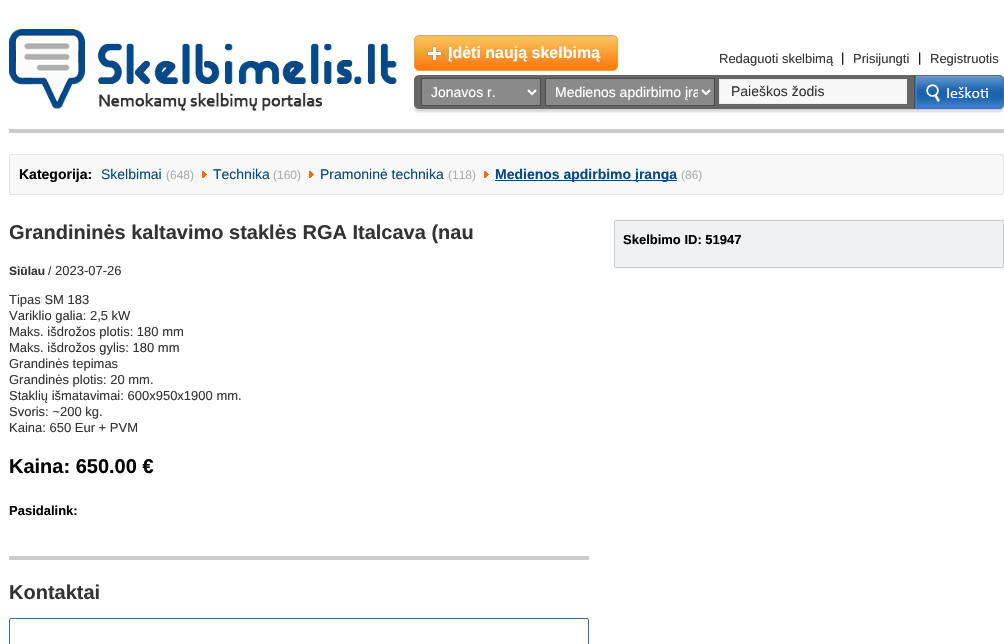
void draw(SkCanvas* canvas) {
    SkPaint paint;
    paint.setAntiAlias(true);
    auto face = [&](const char* family, int weight, float size, bool italic = false) {
        SkFontStyle style(weight, SkFontStyle::kNormal_Width,
            italic ? SkFontStyle::kItalic_Slant : SkFontStyle::kUpright_Slant);
        SkFont result(fontMgr->matchFamilyStyle(family, style), size);
        result.setSubpixel(true);
        return result;
    };
    auto write = [&](const char* s, float x, float y, const SkFont& font, SkColor color) {
        SkPaint ink(SkColor4f::FromColor(color));
        ink.setAntiAlias(true);
        canvas->drawString(s, x, y, font, ink);
    };
    auto block = [&](float x, float y, float w, float h, SkColor color) {
        SkPaint ink(SkColor4f::FromColor(color));
        ink.setAntiAlias(true);
        canvas->drawRect(SkRect::MakeXYWH(x, y, w, h), ink);
    };
    auto paste = [&](const char* path, float x, float y, float w, float h) {
        auto image = SkImages::DeferredFromEncodedData(SkData::MakeFromFileName(path));
        canvas->drawImageRect(image, SkRect::MakeXYWH(x, y, w, h), SkSamplingOptions());
    };
    canvas->clear(SK_ColorWHITE);
    block(9, 129, 995, 4, SkColorSetRGB(204, 204, 204));
    paste("pic1.png", 9, 29, 388, 82);
    paste("pic2.png", 611, 35, 7, 36);
    paste("pic3.png", 414, 35, 197, 36);
    auto kFont1 = face("Liberation Sans", 700, 16);
    write("Įdėti naują skelbimą", 448, 58, kFont1, SK_ColorWHITE);
    auto kFont2 = face("Liberation Sans", 400, 13);
    write("Redaguoti skelbimą", 719, 63, kFont2, SkColorSetRGB(51, 51, 51));
    write("|", 841, 62, kFont2, SK_ColorBLACK);
    write("Prisijungti", 853, 63, kFont2, SkColorSetRGB(51, 51, 51));
    write("|", 918, 62, kFont2, SK_ColorBLACK);
    write("Registruotis", 930, 63, kFont2, SkColorSetRGB(51, 51, 51));
    paste("pic4.png", 414, 75, 500, 38);
    paint.setColor(SkColorSetRGB(138, 138, 138));
    canvas->drawRect(SkRect::MakeXYWH(421.5f, 78.5f, 119, 27), paint);
    paint.setStyle(SkPaint::kStroke_Style);
    paint.setStrokeWidth(1);
    paint.setColor(SkColorSetRGB(75, 75, 75));
    canvas->drawRect(SkRect::MakeXYWH(421.5f, 78.5f, 119, 27), paint);
    paint.setStrokeWidth(2);
    paint.setColor(SK_ColorWHITE);
    canvas->drawPath(SkPathBuilder().moveTo(528, 90).lineTo(532, 94).lineTo(536, 90).detach(), paint);
    auto kFont3 = face("Liberation Sans", 400, 14);
    write("Jonavos r.", 431, 97, kFont3, SK_ColorWHITE);
    paint.setStyle(SkPaint::kFill_Style);
    paint.setColor(SkColorSetRGB(138, 138, 138));
    canvas->drawRect(SkRect::MakeXYWH(545.5f, 78.5f, 169, 27), paint);
    paint.setStyle(SkPaint::kStroke_Style);
    paint.setStrokeWidth(1);
    paint.setColor(SkColorSetRGB(75, 75, 75));
    canvas->drawRect(SkRect::MakeXYWH(545.5f, 78.5f, 169, 27), paint);
    paint.setStrokeWidth(2);
    paint.setColor(SK_ColorWHITE);
    canvas->drawPath(SkPathBuilder().moveTo(702, 90).lineTo(706, 94).lineTo(710, 90).detach(), paint);
    canvas->save();
    canvas->clipRect(SkRect::MakeXYWH(555, 83, 143, 18));
    write("Medienos apdirbimo įra", 555, 97, kFont3, SK_ColorWHITE);
    canvas->restore();
    paint.setStyle(SkPaint::kFill_Style);
    paint.setColor(SkColorSetRGB(248, 247, 247));
    canvas->drawRect(SkRect::MakeXYWH(719.5f, 79.5f, 187, 24), paint);
    paint.setStyle(SkPaint::kStroke_Style);
    paint.setStrokeWidth(1);
    paint.setColor(SkColorSetRGB(239, 239, 239));
    canvas->drawRect(SkRect::MakeXYWH(719.5f, 79.5f, 187, 24), paint);
    write("Paieškos žodis", 731, 96, kFont3, SkColorSetRGB(51, 51, 51));
    paste("pic5.png", 914, 75, 90, 38);
    paint.setStyle(SkPaint::kFill_Style);
    paint.setColor(SkColorSetRGB(248, 248, 248));
    canvas->drawRoundRect(SkRect::MakeXYWH(9.5f, 154.5f, 994, 40), 1.5f, 1.5f, paint);
    paint.setStyle(SkPaint::kStroke_Style);
    paint.setColor(SkColorSetRGB(227, 227, 227));
    canvas->drawRoundRect(SkRect::MakeXYWH(9.5f, 154.5f, 994, 40), 1.5f, 1.5f, paint);
    auto kFont4 = face("Liberation Sans", 700, 14);
    write("Kategorija:", 19, 179, kFont4, SK_ColorBLACK);
    write("Skelbimai", 101, 179, kFont3, SkColorSetRGB(8, 71, 130));
    auto kFont5 = face("Liberation Sans", 400, 12);
    write("(648)", 166, 179, kFont5, SkColorSetRGB(175, 174, 174));
    paste("pic6.png", 202, 171, 5, 7);
    write("Technika", 213, 179, kFont3, SkColorSetRGB(8, 71, 130));
    write("(160)", 273, 179, kFont5, SkColorSetRGB(175, 174, 174));
    paste("pic6.png", 309, 171, 5, 7);
    write("Pramoninė technika", 320, 179, kFont3, SkColorSetRGB(8, 71, 130));
    write("(118)", 448, 179, kFont5, SkColorSetRGB(175, 174, 174));
    paste("pic6.png", 484, 171, 5, 7);
    block(495, 180, 182, 1, SkColorSetRGB(8, 71, 130));
    write("Medienos apdirbimo įranga", 495, 179, kFont4, SkColorSetRGB(8, 71, 130));
    write("(86)", 681, 179, kFont5, SkColorSetRGB(175, 174, 174));
    auto kFont6 = face("Liberation Sans", 700, 20);
    write("Grandininės kaltavimo staklės RGA Italcava (nau", 9, 239, kFont6, SkColorSetRGB(51, 51, 51));
    auto kFont7 = face("Liberation Sans", 700, 12);
    write("Siūlau", 9, 275, kFont7, SkColorSetRGB(51, 51, 51));
    write("/", 48, 275, kFont5, SkColorSetRGB(51, 51, 51));
    write("2023-07-26", 55, 275, kFont2, SkColorSetRGB(51, 51, 51));
    write("Tipas SM 183", 9, 304, kFont2, SkColorSetRGB(51, 51, 51));
    write("Variklio galia: 2,5 kW", 9, 320, kFont2, SkColorSetRGB(51, 51, 51));
    write("Maks. išdrožos plotis: 180 mm", 9, 336, kFont2, SkColorSetRGB(51, 51, 51));
    write("Maks. išdrožos gylis: 180 mm", 9, 352, kFont2, SkColorSetRGB(51, 51, 51));
    write("Grandinės tepimas", 9, 368, kFont2, SkColorSetRGB(51, 51, 51));
    write("Grandinės plotis: 20 mm.", 9, 384, kFont2, SkColorSetRGB(51, 51, 51));
    write("Staklių išmatavimai: 600x950x1900 mm.", 9, 400, kFont2, SkColorSetRGB(51, 51, 51));
    write("Svoris: ~200 kg.", 9, 416, kFont2, SkColorSetRGB(51, 51, 51));
    write("Kaina: 650 Eur + PVM", 9, 432, kFont2, SkColorSetRGB(51, 51, 51));
    write("Kaina: 650.00 €", 9, 473, kFont6, SK_ColorBLACK);
    auto kFont8 = face("Liberation Sans", 700, 13);
    write("Pasidalink:", 9, 515, kFont8, SK_ColorBLACK);
    block(9, 556, 580, 4, SkColorSetRGB(204, 204, 204));
    write("Kontaktai", 9, 599, kFont6, SkColorSetRGB(51, 51, 51));
    paint.setColor(SkColorSetRGB(65, 108, 143));
    canvas->drawRoundRect(SkRect::MakeXYWH(9.5f, 618.5f, 579, 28), 1.5f, 1.5f, paint);
    paint.setStyle(SkPaint::kFill_Style);
    paint.setColor(SkColorSetRGB(240, 241, 242));
    canvas->drawRoundRect(SkRect::MakeXYWH(614.5f, 220.5f, 389, 47), 1.5f, 1.5f, paint);
    paint.setStyle(SkPaint::kStroke_Style);
    paint.setColor(SkColorSetRGB(204, 204, 204));
    canvas->drawRoundRect(SkRect::MakeXYWH(614.5f, 220.5f, 389, 47), 1.5f, 1.5f, paint);
    write("Skelbimo ID: 51947", 623, 244, kFont8, SK_ColorBLACK);
}
